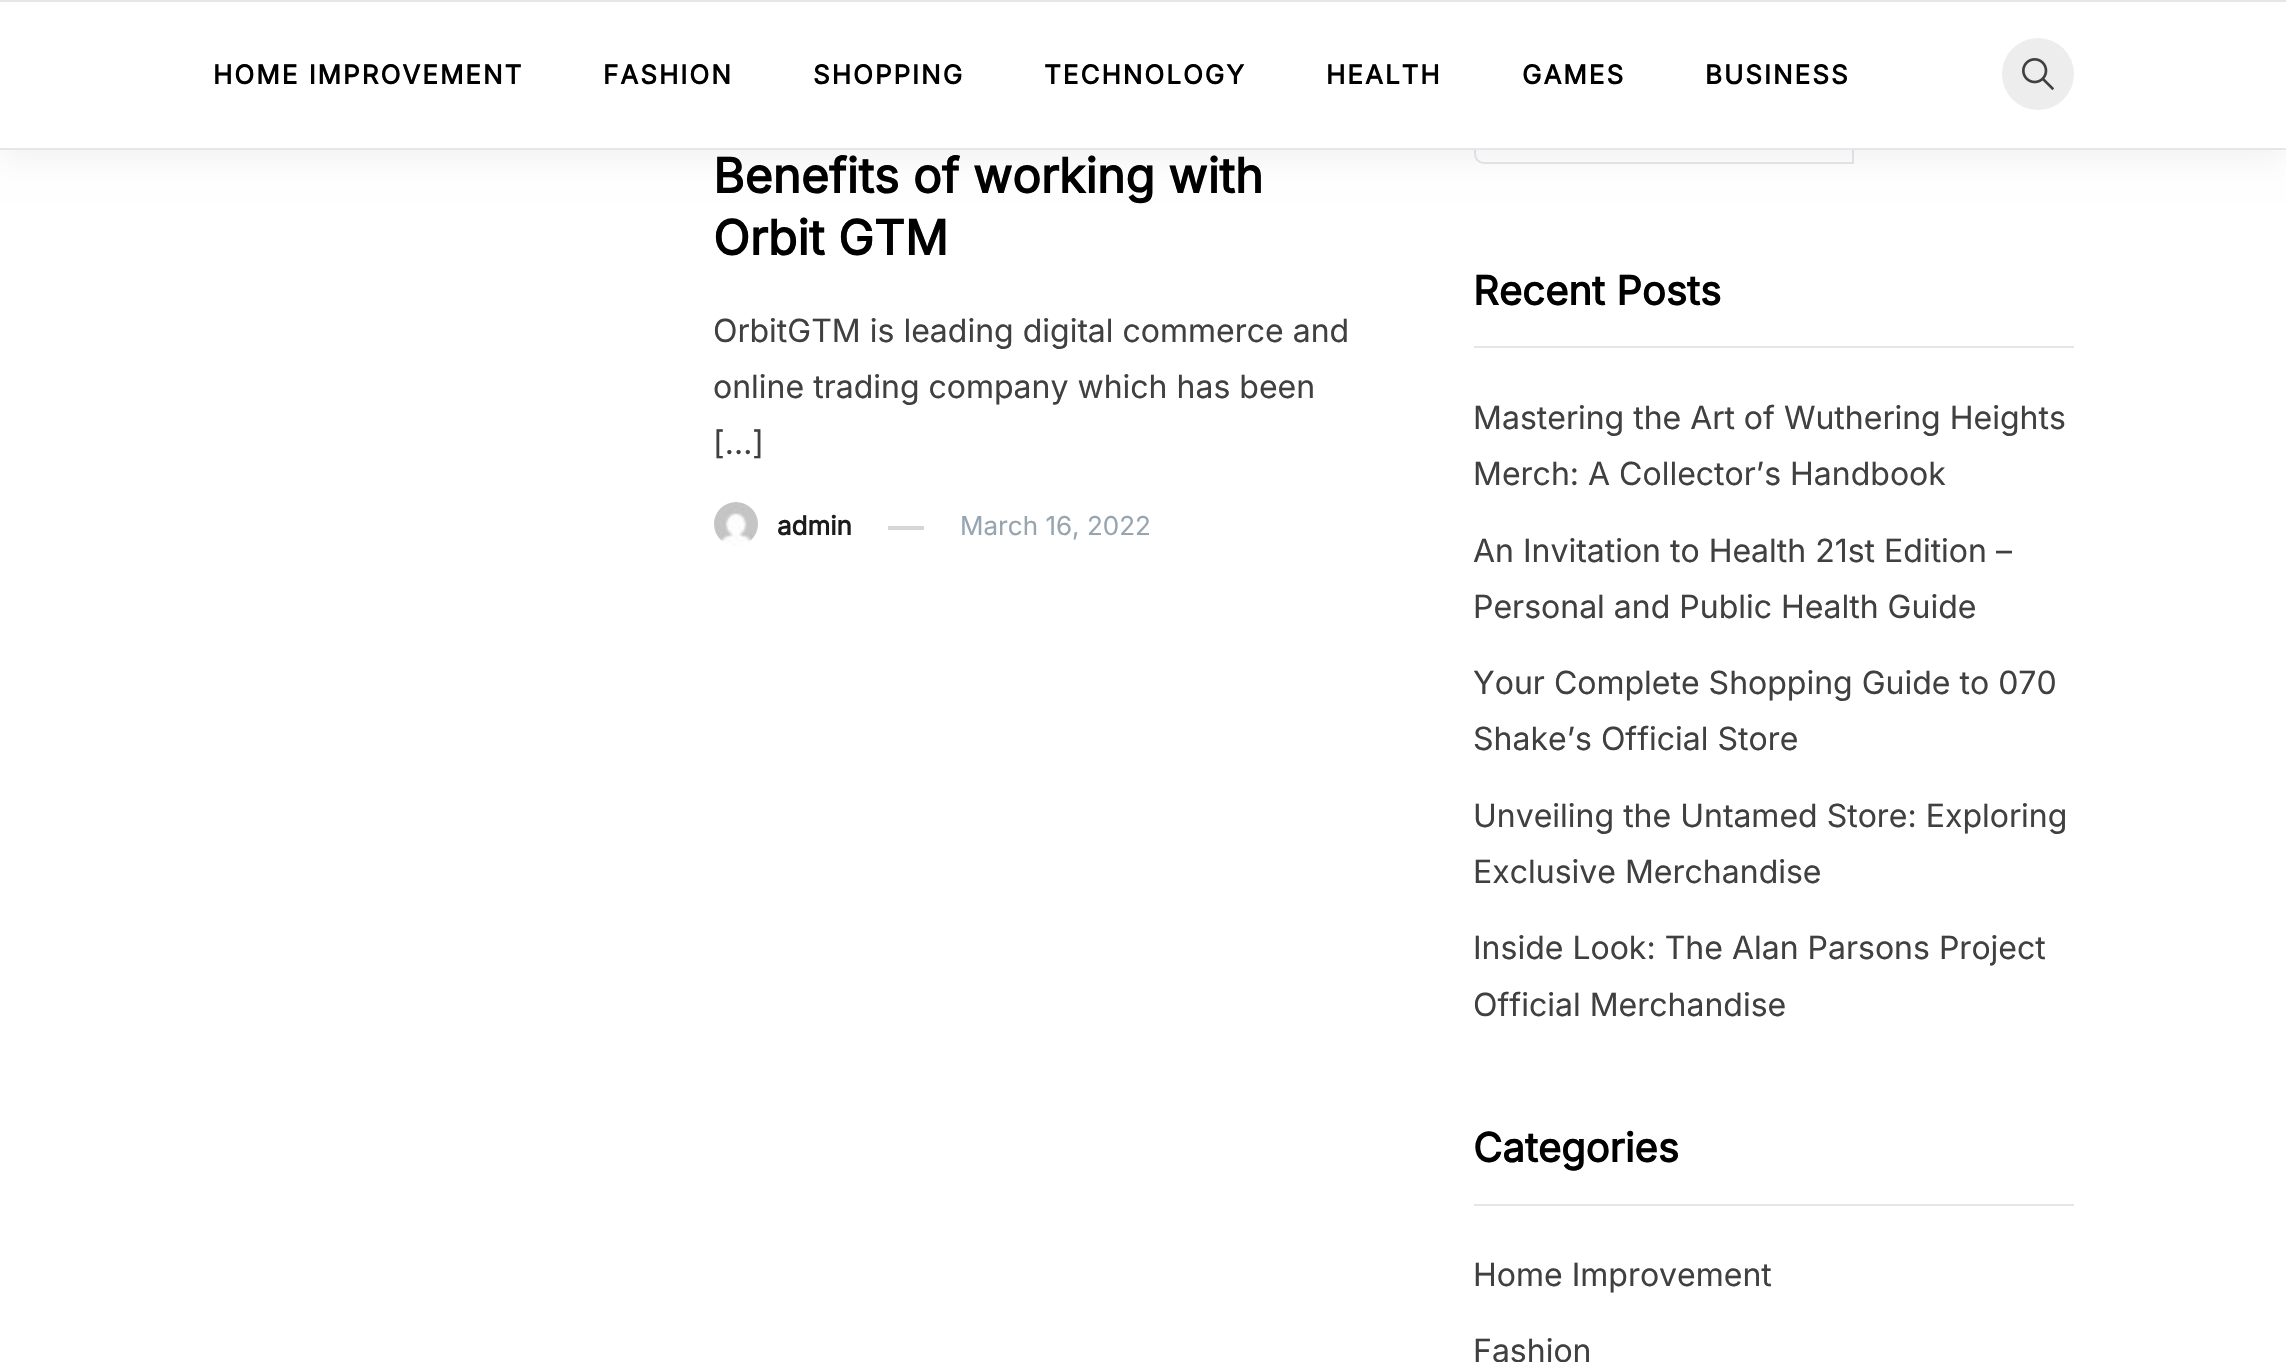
void draw(SkCanvas* canvas) {
    SkPaint paint;
    paint.setAntiAlias(true);
    auto face = [&](const char* family, int weight, float size, bool italic = false) {
        SkFontStyle style(weight, SkFontStyle::kNormal_Width,
            italic ? SkFontStyle::kItalic_Slant : SkFontStyle::kUpright_Slant);
        SkFont result(fontMgr->matchFamilyStyle(family, style), size);
        result.setSubpixel(true);
        return result;
    };
    auto write = [&](const char* s, float x, float y, const SkFont& font, SkColor color) {
        SkPaint ink(SkColor4f::FromColor(color));
        ink.setAntiAlias(true);
        canvas->drawString(s, x, y, font, ink);
    };
    auto writeSpaced = [&](const char* s, float x, float y, const SkFont& font, const SkPaint& ink, float letter, float word) {
        std::vector<SkGlyphID> glyphs(font.countText(s, strlen(s), SkTextEncoding::kUTF8));
        std::vector<float> xs(glyphs.size());
        font.textToGlyphs(s, strlen(s), SkTextEncoding::kUTF8, glyphs);
        font.getXPos(glyphs, xs, x);
        float extra = 0;
        for (size_t i = 0; i < glyphs.size(); i++) {
            xs[i] += extra;
            extra += letter + word * (glyphs[i] == font.unicharToGlyph(' '));
        }
        canvas->drawTextBlob(SkTextBlob::MakeFromPosHGlyphs(glyphs, xs, y, font), 0, 0, ink);
    };
    auto block = [&](float x, float y, float w, float h, SkColor color) {
        SkPaint ink(SkColor4f::FromColor(color));
        ink.setAntiAlias(true);
        canvas->drawRect(SkRect::MakeXYWH(x, y, w, h), ink);
    };
    auto paste = [&](const char* path, float x, float y, float w, float h) {
        auto image = SkImages::DeferredFromEncodedData(SkData::MakeFromFileName(path));
        canvas->drawImageRect(image, SkRect::MakeXYWH(x, y, w, h), SkSamplingOptions());
    };
    canvas->clear(SK_ColorWHITE);
    paint.setStyle(SkPaint::kStroke_Style);
    paint.setStrokeWidth(2);
    paint.setColor(SkColorSetRGB(228, 230, 234));
    canvas->drawPath(SkPathBuilder().moveTo(1484, 65).lineTo(1853, 65).lineTo(1853, 163).lineTo(1484, 163).cubicTo(1479, 163, 1475, 159, 1475, 154).lineTo(1475, 74).cubicTo(1475, 69, 1479, 65, 1484, 65).close().detach(), paint);
    paint.setStyle(SkPaint::kFill_Style);
    paint.setColor(SkColorSetARGB(13, 0, 0, 0));
    paint.setMaskFilter(SkMaskFilter::MakeBlur(kNormal_SkBlurStyle, 15));
    canvas->drawRect(SkRect::MakeXYWH(0, 10, 2286, 150), paint);
    paint.setMaskFilter(nullptr);
    block(0, 2, 2286, 146, SK_ColorWHITE);
    block(0, 0, 2286, 2, SkColorSetRGB(228, 230, 234));
    block(0, 148, 2286, 2, SkColorSetRGB(228, 230, 234));
    auto kFont1 = face("Inter", 700, 26);
    paint.setColor(SK_ColorBLACK);
    writeSpaced("HOME IMPROVEMENT", 213, 84, kFont1, paint, 2, 0);
    writeSpaced("FASHION", 603, 84, kFont1, paint, 2, 0);
    writeSpaced("SHOPPING", 813, 84, kFont1, paint, 2, 0);
    writeSpaced("TECHNOLOGY", 1044, 84, kFont1, paint, 2, 0);
    writeSpaced("HEALTH", 1326, 84, kFont1, paint, 2, 0);
    writeSpaced("GAMES", 1522, 84, kFont1, paint, 2, 0);
    writeSpaced("BUSINESS", 1705, 84, kFont1, paint, 2, 0);
    paint.setColor(SkColorSetRGB(237, 237, 237));
    canvas->drawCircle(2038, 74, 36, paint);
    paste("pic1.png", 2022, 58, 32, 32);
    auto kFont2 = face("Inter", 700, 48);
    write("Benefits of working with", 713, 193, kFont2, SK_ColorBLACK);
    write("Orbit GTM", 713, 255, kFont2, SK_ColorBLACK);
    auto kFont3 = face("Inter", 400, 32);
    write("OrbitGTM is leading digital commerce and", 713, 342, kFont3, SkColorSetRGB(64, 64, 64));
    write("online trading company which has been", 713, 398, kFont3, SkColorSetRGB(64, 64, 64));
    write("[…]", 713, 454, kFont3, SkColorSetRGB(64, 64, 64));
    paste("pic2.png", 714, 502, 44, 44);
    write("admin", 777, 535, kFont1, SkColorSetRGB(28, 28, 28));
    block(888, 526, 36, 4, SkColorSetRGB(214, 214, 214));
    auto kFont4 = face("Inter", 400, 26);
    write("March 16, 2022", 960, 535, kFont4, SkColorSetRGB(151, 165, 177));
    block(1474, 346, 600, 2, SkColorSetRGB(228, 230, 234));
    auto kFont5 = face("Inter", 700, 40);
    write("Recent Posts", 1473, 305, kFont5, SK_ColorBLACK);
    write("Mastering the Art of Wuthering Heights", 1473, 429, kFont3, SkColorSetRGB(64, 64, 64));
    write("Merch: A Collector’s Handbook", 1473, 485, kFont3, SkColorSetRGB(64, 64, 64));
    write("An Invitation to Health 21st Edition –", 1473, 562, kFont3, SkColorSetRGB(64, 64, 64));
    write("Personal and Public Health Guide", 1473, 618, kFont3, SkColorSetRGB(64, 64, 64));
    write("Your Complete Shopping Guide to 070", 1473, 694, kFont3, SkColorSetRGB(64, 64, 64));
    write("Shake’s Official Store", 1473, 750, kFont3, SkColorSetRGB(64, 64, 64));
    write("Unveiling the Untamed Store: Exploring", 1473, 827, kFont3, SkColorSetRGB(64, 64, 64));
    write("Exclusive Merchandise", 1473, 883, kFont3, SkColorSetRGB(64, 64, 64));
    write("Inside Look: The Alan Parsons Project", 1473, 959, kFont3, SkColorSetRGB(64, 64, 64));
    write("Official Merchandise", 1473, 1016, kFont3, SkColorSetRGB(64, 64, 64));
    block(1474, 1204, 600, 2, SkColorSetRGB(228, 230, 234));
    write("Categories", 1473, 1162, kFont5, SK_ColorBLACK);
    write("Home Improvement", 1473, 1286, kFont3, SkColorSetRGB(64, 64, 64));
    write("Fashion", 1473, 1362, kFont3, SkColorSetRGB(64, 64, 64));
}
